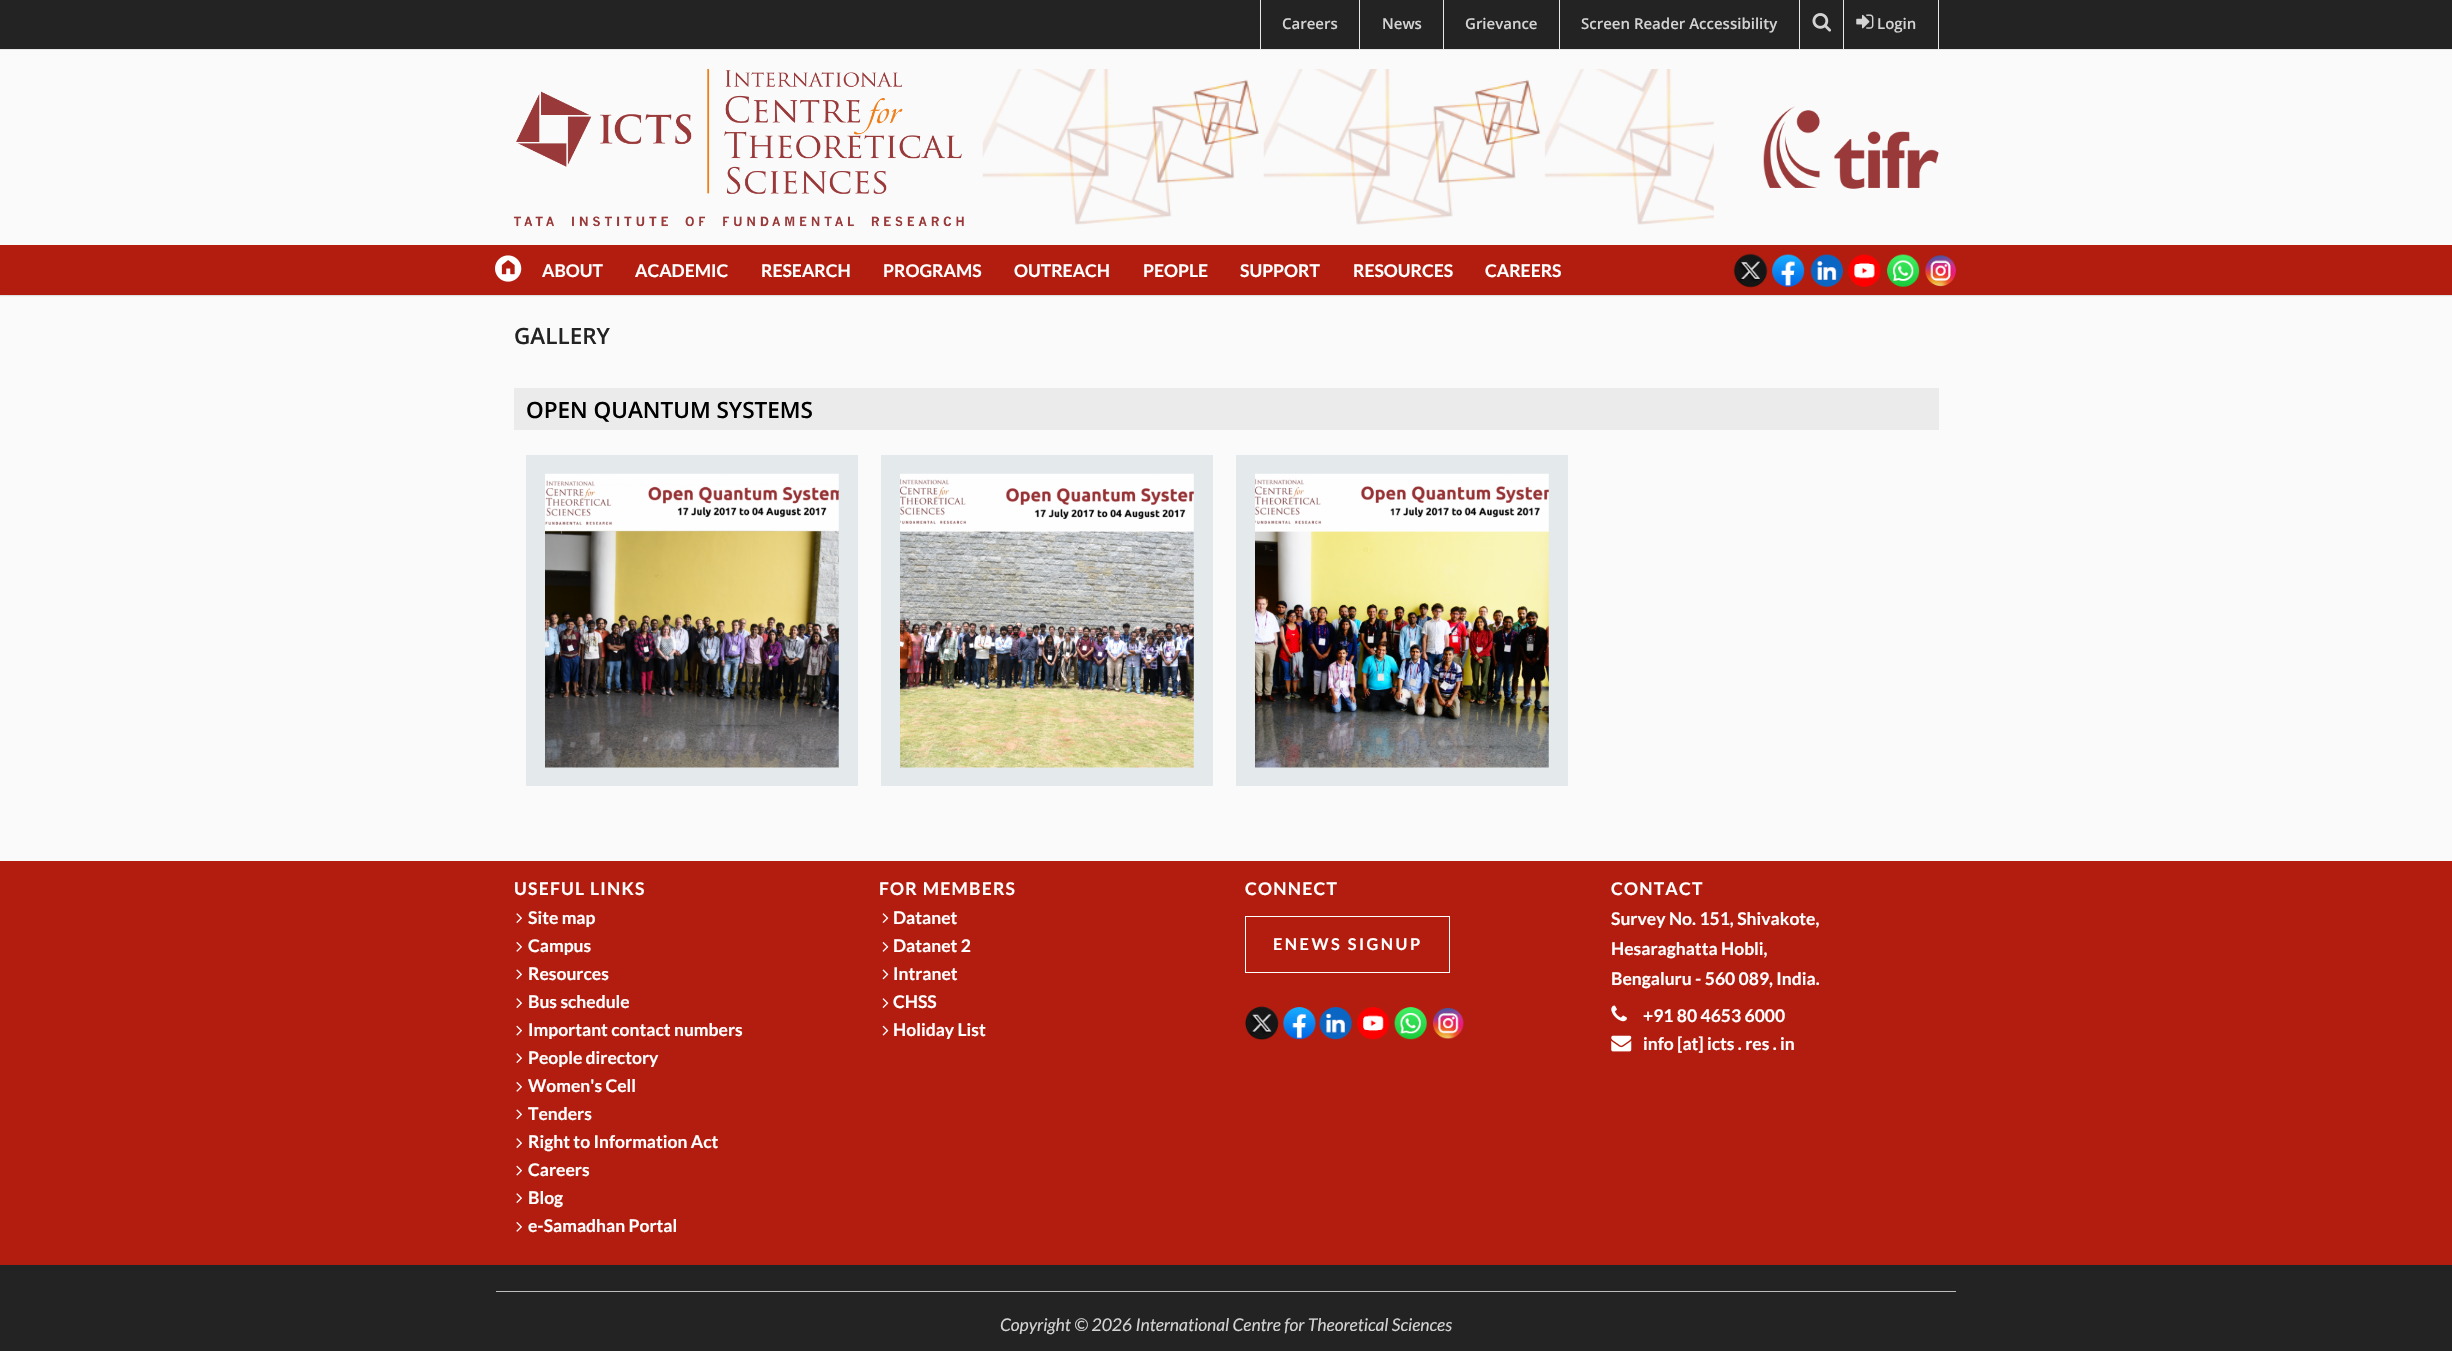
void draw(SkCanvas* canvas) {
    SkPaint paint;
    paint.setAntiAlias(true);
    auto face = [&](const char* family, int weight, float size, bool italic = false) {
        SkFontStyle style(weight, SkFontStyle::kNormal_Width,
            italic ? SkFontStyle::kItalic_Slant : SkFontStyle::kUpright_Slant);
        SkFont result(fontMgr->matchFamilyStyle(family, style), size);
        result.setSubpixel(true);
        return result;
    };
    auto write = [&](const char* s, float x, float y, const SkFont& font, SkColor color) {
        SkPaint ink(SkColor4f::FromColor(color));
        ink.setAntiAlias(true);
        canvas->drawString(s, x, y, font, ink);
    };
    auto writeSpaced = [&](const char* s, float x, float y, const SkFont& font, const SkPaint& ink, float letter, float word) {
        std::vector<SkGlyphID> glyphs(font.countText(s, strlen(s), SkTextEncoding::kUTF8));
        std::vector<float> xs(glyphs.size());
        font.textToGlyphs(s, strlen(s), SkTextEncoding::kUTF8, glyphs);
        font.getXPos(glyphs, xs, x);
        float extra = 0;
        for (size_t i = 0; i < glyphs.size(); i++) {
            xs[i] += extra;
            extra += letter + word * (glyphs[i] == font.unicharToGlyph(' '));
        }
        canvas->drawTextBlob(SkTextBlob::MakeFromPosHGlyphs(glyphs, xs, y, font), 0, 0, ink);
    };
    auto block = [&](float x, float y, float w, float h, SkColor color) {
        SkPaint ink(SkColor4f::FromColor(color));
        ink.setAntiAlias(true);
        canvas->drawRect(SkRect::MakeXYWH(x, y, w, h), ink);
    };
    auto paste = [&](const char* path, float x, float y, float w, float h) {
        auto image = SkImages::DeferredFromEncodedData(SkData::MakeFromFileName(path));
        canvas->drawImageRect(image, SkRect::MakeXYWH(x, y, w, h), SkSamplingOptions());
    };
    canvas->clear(SkColorSetRGB(250, 250, 250));
    block(0, 0, 2452, 49, SkColorSetRGB(35, 35, 35));
    block(0, 49, 2452, 1, SkColorSetRGB(231, 231, 231));
    block(1260, 0, 1, 50, SkColorSetRGB(231, 231, 231));
    auto kFont1 = face("Open Sans", 600, 15);
    write("Careers", 1282, 29, kFont1, SkColorSetRGB(211, 211, 211));
    block(1359, 0, 1, 50, SkColorSetRGB(231, 231, 231));
    write("News", 1382, 29, kFont1, SkColorSetRGB(211, 211, 211));
    block(1443, 0, 1, 50, SkColorSetRGB(231, 231, 231));
    write("Grievance", 1465, 29, kFont1, SkColorSetRGB(211, 211, 211));
    block(1559, 0, 1, 50, SkColorSetRGB(231, 231, 231));
    write("Screen Reader Accessibility", 1581, 29, kFont1, SkColorSetRGB(211, 211, 211));
    block(1799, 0, 1, 50, SkColorSetRGB(231, 231, 231));
    paste("pic1.png", 1812, 13, 19, 19);
    block(1938, 0, 1, 50, SkColorSetRGB(231, 231, 231));
    block(1843, 0, 1, 50, SkColorSetRGB(231, 231, 231));
    paste("pic2.png", 1856, 14, 18, 15);
    write("Login", 1877, 29, kFont1, SkColorSetRGB(211, 211, 211));
    paste("pic3.png", 513, 68, 451, 159);
    paste("pic4.png", 982, 69, 732, 156);
    paste("pic5.png", 1763, 106, 176, 83);
    paint.setColor(SkColorSetARGB(26, 0, 0, 0));
    paint.setMaskFilter(SkMaskFilter::MakeBlur(kNormal_SkBlurStyle, 0.5f));
    canvas->drawRect(SkRect::MakeXYWH(0, 246, 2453, 50), paint);
    paint.setMaskFilter(nullptr);
    block(0, 245, 2452, 50, SkColorSetRGB(179, 29, 15));
    paste("pic6.png", 495, 255, 27, 27);
    auto kFont2 = face("Lato", 700, 17.5f);
    write("ABOUT", 542, 277, kFont2, SK_ColorWHITE);
    write("ACADEMIC", 635, 277, kFont2, SK_ColorWHITE);
    write("RESEARCH", 761, 277, kFont2, SK_ColorWHITE);
    write("PROGRAMS", 883, 277, kFont2, SK_ColorWHITE);
    write("OUTREACH", 1014, 277, kFont2, SK_ColorWHITE);
    write("PEOPLE", 1143, 277, kFont2, SK_ColorWHITE);
    write("SUPPORT", 1240, 277, kFont2, SK_ColorWHITE);
    write("RESOURCES", 1353, 277, kFont2, SK_ColorWHITE);
    write("CAREERS", 1485, 277, kFont2, SK_ColorWHITE);
    paste("pic7.png", 1733, 253, 35, 35);
    paste("pic8.png", 1772, 254, 33, 33);
    paste("pic9.png", 1810, 254, 33, 33);
    paste("pic10.png", 1848, 254, 33, 33);
    paste("pic11.png", 1887, 254, 33, 33);
    paste("pic12.png", 1925, 255, 31, 32);
    auto kFont3 = face("Open Sans", 600, 22.5f);
    write("GALLERY", 514, 344, kFont3, SkColorSetRGB(35, 35, 35));
    block(514, 388, 1425, 42, SkColorSetRGB(235, 235, 235));
    write("OPEN QUANTUM SYSTEMS", 526, 418, kFont3, SK_ColorBLACK);
    block(526, 455, 332, 331, SkColorSetRGB(228, 233, 236));
    paste("pic13.png", 545, 473, 294, 295);
    block(881, 455, 332, 331, SkColorSetRGB(228, 233, 236));
    paste("pic14.png", 900, 473, 294, 295);
    block(1236, 455, 332, 331, SkColorSetRGB(228, 233, 236));
    paste("pic15.png", 1255, 473, 294, 295);
    block(0, 861, 2452, 404, SkColorSetRGB(179, 29, 15));
    paint.setColor(SK_ColorWHITE);
    writeSpaced("USEFUL LINKS", 514, 895, kFont2, paint, 1.25f, 0);
    paste("pic16.png", 516, 913, 6, 10);
    write("Site map", 528, 924, kFont2, SK_ColorWHITE);
    paste("pic17.png", 516, 942, 6, 10);
    write("Campus", 528, 952, kFont2, SK_ColorWHITE);
    paste("pic18.png", 516, 969, 6, 11);
    write("Resources", 528, 980, kFont2, SK_ColorWHITE);
    paste("pic16.png", 516, 998, 6, 10);
    write("Bus schedule", 528, 1008, kFont2, SK_ColorWHITE);
    paste("pic19.png", 516, 1025, 6, 11);
    write("Important contact numbers", 528, 1036, kFont2, SK_ColorWHITE);
    paste("pic16.png", 516, 1053, 6, 10);
    write("People directory", 528, 1064, kFont2, SK_ColorWHITE);
    paste("pic17.png", 516, 1082, 6, 10);
    write("Women's Cell", 528, 1092, kFont2, SK_ColorWHITE);
    paste("pic18.png", 516, 1109, 6, 11);
    write("Tenders", 528, 1120, kFont2, SK_ColorWHITE);
    paste("pic16.png", 516, 1138, 6, 10);
    write("Right to Information Act", 528, 1148, kFont2, SK_ColorWHITE);
    paste("pic19.png", 516, 1165, 6, 11);
    write("Careers", 528, 1176, kFont2, SK_ColorWHITE);
    paste("pic16.png", 516, 1193, 6, 10);
    write("Blog", 528, 1204, kFont2, SK_ColorWHITE);
    paste("pic17.png", 516, 1222, 6, 10);
    write("e-Samadhan Portal", 528, 1232, kFont2, SK_ColorWHITE);
    writeSpaced("FOR MEMBERS", 879, 895, kFont2, paint, 1.25f, 0);
    paste("pic20.png", 882, 913, 7, 10);
    write("Datanet", 893, 924, kFont2, SK_ColorWHITE);
    paste("pic21.png", 882, 942, 7, 10);
    write("Datanet 2", 893, 952, kFont2, SK_ColorWHITE);
    paste("pic22.png", 882, 969, 7, 11);
    write("Intranet", 893, 980, kFont2, SK_ColorWHITE);
    paste("pic20.png", 882, 998, 7, 10);
    write("CHSS", 893, 1008, kFont2, SK_ColorWHITE);
    paste("pic23.png", 882, 1025, 7, 11);
    write("Holiday List", 893, 1036, kFont2, SK_ColorWHITE);
    writeSpaced("CONNECT", 1245, 895, kFont2, paint, 1.25f, 0);
    paint.setStyle(SkPaint::kStroke_Style);
    paint.setStrokeWidth(1);
    canvas->drawRect(SkRect::MakeXYWH(1245.5f, 916.5f, 204, 56), paint);
    auto kFont4 = face("Lato", 700, 16.25f);
    paint.setStyle(SkPaint::kFill_Style);
    writeSpaced("ENEWS SIGNUP", 1273, 950, kFont4, paint, 2.5f, 0);
    paste("pic24.png", 1245, 1006, 34, 34);
    paste("pic25.png", 1283, 1007, 33, 33);
    paste("pic26.png", 1319, 1007, 33, 33);
    paste("pic27.png", 1357, 1007, 33, 33);
    paste("pic28.png", 1394, 1007, 33, 33);
    paste("pic29.png", 1433, 1008, 31, 31);
    writeSpaced("CONTACT", 1611, 895, kFont2, paint, 1.25f, 0);
    write("Survey No. 151, Shivakote,", 1611, 925, kFont2, SK_ColorWHITE);
    write("Hesaraghatta Hobli,", 1611, 955, kFont2, SK_ColorWHITE);
    write("Bengaluru - 560 089, India.", 1611, 985, kFont2, SK_ColorWHITE);
    paste("pic30.png", 1611, 1005, 16, 17);
    write("+91 80 4653 6000", 1643, 1022, kFont2, SK_ColorWHITE);
    paste("pic31.png", 1611, 1035, 21, 17);
    write("info [at] icts . res . in", 1643, 1050, kFont2, SK_ColorWHITE);
    block(0, 1265, 2452, 86, SkColorSetRGB(35, 35, 35));
    block(496, 1291, 1460, 1, SkColorSetRGB(189, 189, 189));
    auto kFont5 = face("Lato", 400, 17.5f, true);
    write("Copyright © 2026 International Centre for Theoretical Sciences", 1000, 1331, kFont5, SkColorSetRGB(211, 211, 211));
}
